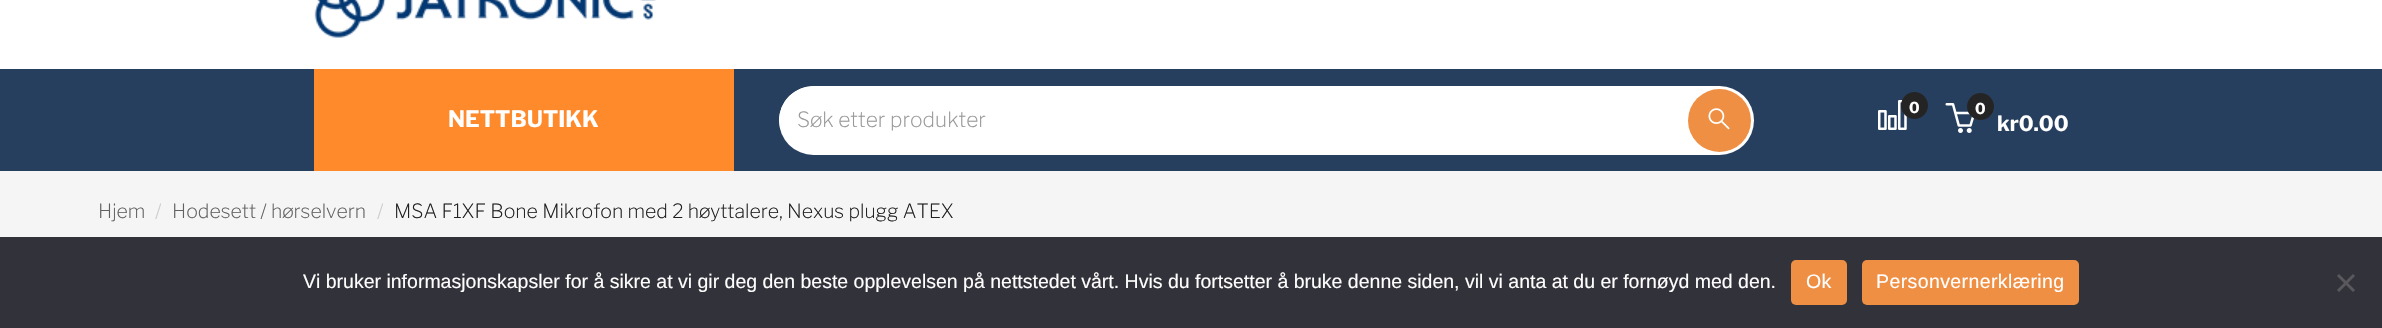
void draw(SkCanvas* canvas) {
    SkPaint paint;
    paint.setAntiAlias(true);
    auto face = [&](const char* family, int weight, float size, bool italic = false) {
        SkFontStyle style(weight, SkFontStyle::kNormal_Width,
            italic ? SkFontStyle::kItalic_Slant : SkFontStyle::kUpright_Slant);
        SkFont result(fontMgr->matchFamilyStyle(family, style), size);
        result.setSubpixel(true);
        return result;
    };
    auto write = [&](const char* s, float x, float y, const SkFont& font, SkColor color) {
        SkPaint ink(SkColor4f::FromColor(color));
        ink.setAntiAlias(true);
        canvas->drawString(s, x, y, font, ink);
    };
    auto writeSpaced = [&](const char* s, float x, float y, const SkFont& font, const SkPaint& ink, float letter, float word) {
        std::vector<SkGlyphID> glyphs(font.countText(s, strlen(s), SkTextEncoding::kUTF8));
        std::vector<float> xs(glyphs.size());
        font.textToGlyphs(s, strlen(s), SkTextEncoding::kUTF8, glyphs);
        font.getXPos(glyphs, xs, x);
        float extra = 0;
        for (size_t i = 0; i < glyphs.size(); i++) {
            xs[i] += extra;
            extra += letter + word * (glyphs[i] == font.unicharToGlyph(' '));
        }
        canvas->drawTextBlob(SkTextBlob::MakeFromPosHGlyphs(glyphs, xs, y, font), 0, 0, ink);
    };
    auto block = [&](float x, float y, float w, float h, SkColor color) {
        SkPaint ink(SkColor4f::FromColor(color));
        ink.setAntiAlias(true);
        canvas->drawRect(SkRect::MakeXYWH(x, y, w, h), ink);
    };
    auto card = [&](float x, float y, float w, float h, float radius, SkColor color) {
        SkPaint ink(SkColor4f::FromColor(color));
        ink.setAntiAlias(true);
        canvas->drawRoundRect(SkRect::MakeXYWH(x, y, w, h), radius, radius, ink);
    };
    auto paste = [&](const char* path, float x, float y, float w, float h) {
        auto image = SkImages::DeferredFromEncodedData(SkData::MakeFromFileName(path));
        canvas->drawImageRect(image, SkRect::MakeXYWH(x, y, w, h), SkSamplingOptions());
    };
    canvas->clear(SK_ColorWHITE);
    paste("pic1.png", 314, 0, 342, 38);
    block(0, 69, 2382, 102, SkColorSetRGB(39, 63, 95));
    block(314, 69, 420, 102, SkColorSetRGB(254, 138, 44));
    auto kFont1 = face("Libre Franklin", 700, 22.5f);
    write("NETTBUTIKK", 448, 127, kFont1, SK_ColorWHITE);
    card(779, 86, 975, 69, 34.5f, SK_ColorWHITE);
    canvas->save();
    canvas->clipPath(SkPathBuilder().moveTo(813.5f, 86).lineTo(1719.5f, 86).cubicTo(1738.5f, 86, 1754, 101.5f, 1754, 120.5f).cubicTo(1754, 139.5f, 1738.5f, 155, 1719.5f, 155).lineTo(813.5f, 155).cubicTo(794.5f, 155, 779, 139.5f, 779, 120.5f).cubicTo(779, 101.5f, 794.5f, 86, 813.5f, 86).close().detach(), true);
    paint.setColor(SK_ColorWHITE);
    canvas->drawPath(SkPathBuilder().moveTo(813.5f, 86).lineTo(1439, 86).lineTo(1439, 152).lineTo(812, 152).cubicTo(794, 152, 779, 137, 779, 119).lineTo(779, 120.5f).cubicTo(779, 101.5f, 794.5f, 86, 813.5f, 86).close().detach(), paint);
    canvas->restore();
    auto kFont2 = face("Libre Franklin", 200, 21);
    write("Søk etter produkter", 797, 127, kFont2, SkColorSetRGB(153, 153, 153));
    paint.setColor(SkColorSetRGB(239, 143, 68));
    canvas->drawCircle(1719.5f, 120.5f, 31.5f, paint);
    paste("pic2.png", 1708, 108, 22, 22);
    paste("pic3.png", 1878, 100, 29, 30);
    paint.setColor(SkColorSetRGB(36, 36, 36));
    canvas->drawCircle(1914.5f, 105.5f, 13.5f, paint);
    auto kFont3 = face("Libre Franklin", 700, 15);
    write("0", 1909, 113, kFont3, SK_ColorWHITE);
    paste("pic4.png", 1945, 103, 29, 30);
    canvas->drawCircle(1980.5f, 106.5f, 13.5f, paint);
    write("0", 1975, 114, kFont3, SK_ColorWHITE);
    auto kFont4 = face("Libre Franklin", 700, 21);
    write("kr0.00", 1997, 131, kFont4, SK_ColorWHITE);
    block(0, 171, 2382, 66, SkColorSetRGB(245, 245, 245));
    auto kFont5 = face("Libre Franklin", 200, 19.5f);
    write("Hjem", 98, 218, kFont5, SkColorSetRGB(97, 97, 97));
    write("/", 155, 218, kFont5, SkColorSetRGB(204, 204, 204));
    write("Hodesett / hørselvern", 172, 218, kFont5, SkColorSetRGB(97, 97, 97));
    write("/", 377, 218, kFont5, SkColorSetRGB(204, 204, 204));
    write("MSA F1XF Bone Mikrofon med 2 høyttalere, Nexus plugg ATEX", 394, 218, kFont5, SkColorSetRGB(33, 33, 33));
    block(0, 237, 2382, 91, SkColorSetRGB(50, 50, 58));
    auto kFont6 = face("Liberation Sans", 400, 19.5f);
    write("Vi bruker informasjonskapsler for å sikre at vi gir deg den beste opplevelsen på nettstedet vårt. Hvis du fortsetter å bruke denne siden, vil vi anta at du er fornøyd med den.", 303, 288, kFont6, SK_ColorWHITE);
    card(1791, 260, 56, 45, 5, SkColorSetRGB(239, 143, 68));
    paint.setColor(SK_ColorWHITE);
    writeSpaced("Ok", 1806, 288, kFont6, paint, 0.4f, 0);
    card(1862, 260, 217, 45, 5, SkColorSetRGB(239, 143, 68));
    writeSpaced("Personvernerklæring", 1876, 288, kFont6, paint, 0.4f, 0);
    paint.setColor(SkColorSetRGB(89, 89, 93));
    canvas->drawPath(SkPathBuilder().moveTo(2353, 274).lineTo(2355, 276).lineTo(2339, 292).lineTo(2337, 290).close().detach(), paint);
    canvas->drawPath(SkPathBuilder().moveTo(2337, 276).lineTo(2339, 274).lineTo(2355, 290).lineTo(2353, 292).close().detach(), paint);
}
